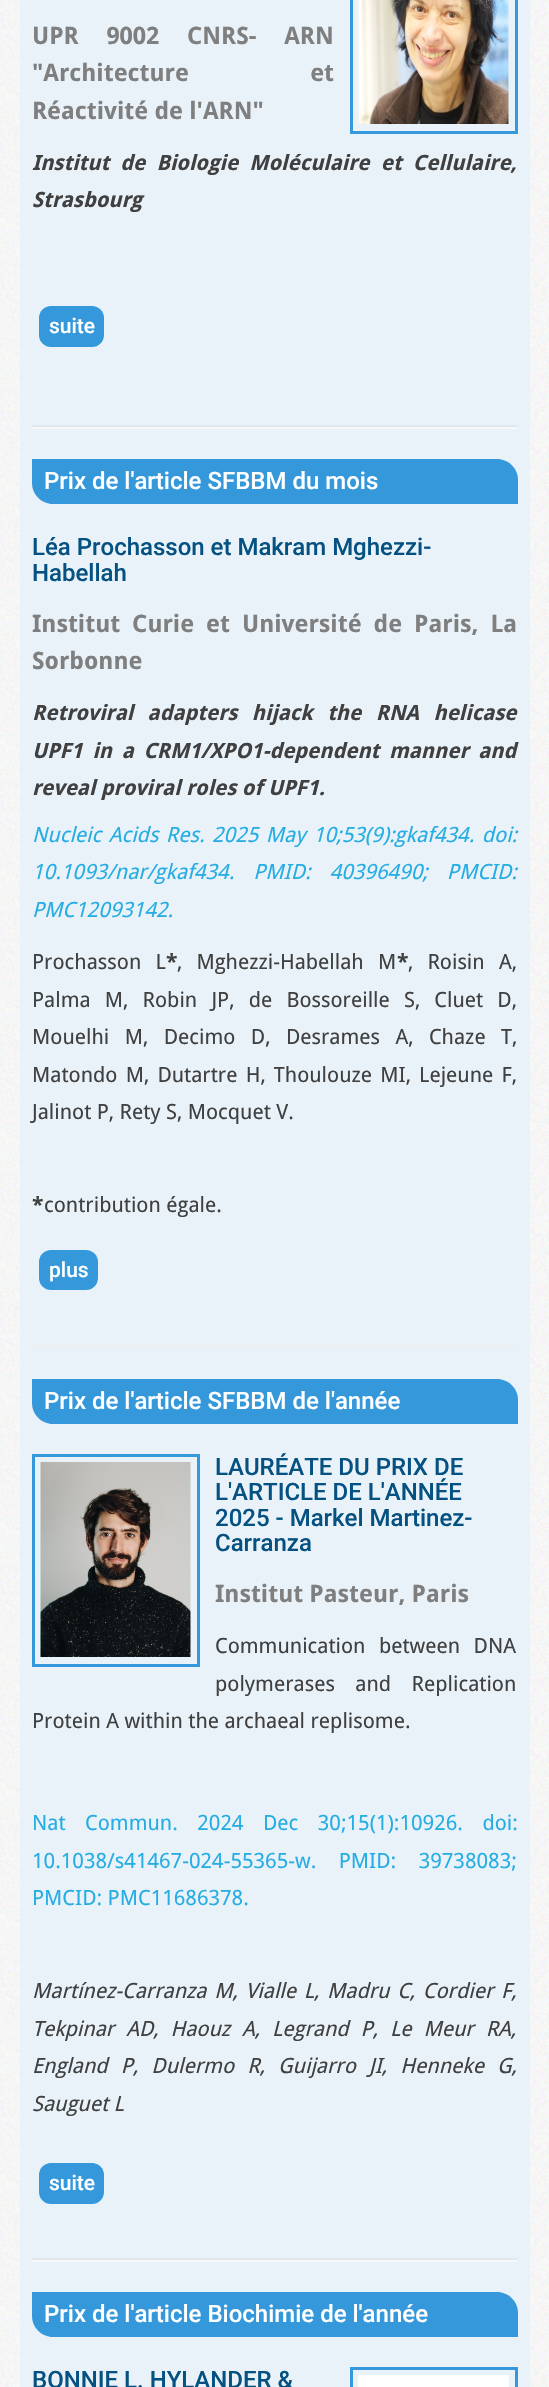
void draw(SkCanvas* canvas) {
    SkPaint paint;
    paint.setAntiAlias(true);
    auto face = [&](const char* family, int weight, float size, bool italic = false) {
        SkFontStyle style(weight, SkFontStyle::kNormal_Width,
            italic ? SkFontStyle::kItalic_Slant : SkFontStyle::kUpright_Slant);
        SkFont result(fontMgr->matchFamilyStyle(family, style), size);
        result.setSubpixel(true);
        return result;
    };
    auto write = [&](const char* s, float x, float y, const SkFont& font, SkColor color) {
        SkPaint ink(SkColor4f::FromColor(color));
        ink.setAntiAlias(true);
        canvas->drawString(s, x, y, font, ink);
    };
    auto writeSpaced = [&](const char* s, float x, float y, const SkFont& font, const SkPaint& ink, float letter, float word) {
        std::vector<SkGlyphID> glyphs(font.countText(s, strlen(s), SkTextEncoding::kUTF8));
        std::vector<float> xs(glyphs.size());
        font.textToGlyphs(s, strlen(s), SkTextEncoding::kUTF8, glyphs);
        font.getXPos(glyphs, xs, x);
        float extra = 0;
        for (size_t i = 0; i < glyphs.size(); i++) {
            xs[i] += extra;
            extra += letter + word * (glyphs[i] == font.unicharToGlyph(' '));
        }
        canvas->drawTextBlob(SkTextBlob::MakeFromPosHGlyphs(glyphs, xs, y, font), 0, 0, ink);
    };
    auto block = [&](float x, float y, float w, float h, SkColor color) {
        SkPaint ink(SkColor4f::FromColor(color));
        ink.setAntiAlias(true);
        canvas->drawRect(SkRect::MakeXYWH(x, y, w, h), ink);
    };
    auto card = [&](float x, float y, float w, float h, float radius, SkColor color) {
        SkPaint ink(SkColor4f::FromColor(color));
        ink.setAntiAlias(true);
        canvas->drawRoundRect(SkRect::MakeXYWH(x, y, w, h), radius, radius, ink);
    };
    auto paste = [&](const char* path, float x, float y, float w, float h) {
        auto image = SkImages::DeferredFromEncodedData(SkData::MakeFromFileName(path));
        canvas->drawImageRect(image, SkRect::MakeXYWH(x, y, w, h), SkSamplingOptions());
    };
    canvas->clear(SK_ColorWHITE);
    paste("pic1.png", 0, 0, 549, 2387);
    block(20, 0, 510, 2387, SkColorSetRGB(233, 242, 248));
    paint.setStyle(SkPaint::kStroke_Style);
    paint.setStrokeWidth(3);
    paint.setColor(SkColorSetRGB(52, 152, 219));
    canvas->drawRect(SkRect::MakeXYWH(351.5f, -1.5f, 165, 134), paint);
    paste("pic2.png", 358, 0, 151, 124);
    auto kFont1 = face("Droid Sans", 700, 24);
    paint.setStyle(SkPaint::kFill_Style);
    paint.setColor(SkColorSetRGB(127, 127, 127));
    writeSpaced("UPR 9002 CNRS- ARN", 32, 44, kFont1, paint, 0, 21.5f);
    writeSpaced("\"Architecture et", 32, 81, kFont1, paint, 0, 115);
    write("Réactivité de l'ARN\"", 32, 119, kFont1, SkColorSetRGB(127, 127, 127));
    auto kFont2 = face("Droid Sans", 700, 21, true);
    paint.setColor(SkColorSetRGB(64, 64, 64));
    writeSpaced("Institut de Biologie Moléculaire et Cellulaire,", 32, 170, kFont2, paint, 0, 5.75f);
    write("Strasbourg", 32, 207, kFont2, SkColorSetRGB(64, 64, 64));
    card(39, 306, 65, 41, 12, SkColorSetRGB(52, 152, 219));
    auto kFont3 = face("Roboto", 500, 21);
    write("suite", 49, 333, kFont3, SK_ColorWHITE);
    paste("pic3.png", 31, 425, 487, 4);
    paint.setColor(SkColorSetRGB(52, 152, 219));
    canvas->drawPath(SkPathBuilder().moveTo(32, 459).lineTo(497, 459).cubicTo(508.5f, 459, 518, 468.5f, 518, 480).lineTo(518, 504).lineTo(53, 504).cubicTo(41.5f, 504, 32, 494.5f, 32, 483).close().detach(), paint);
    auto kFont4 = face("Roboto", 500, 24);
    write("Prix de l'article SFBBM du mois", 44, 489, kFont4, SK_ColorWHITE);
    write("Léa Prochasson et Makram Mghezzi-", 32, 555, kFont4, SkColorSetRGB(4, 81, 130));
    write("Habellah", 32, 581, kFont4, SkColorSetRGB(4, 81, 130));
    paint.setColor(SkColorSetRGB(127, 127, 127));
    writeSpaced("Institut Curie et Université de Paris, La", 32, 632, kFont1, paint, 0, 5.75f);
    write("Sorbonne", 32, 669, kFont1, SkColorSetRGB(127, 127, 127));
    paint.setColor(SkColorSetRGB(64, 64, 64));
    writeSpaced("Retroviral adapters hijack the RNA helicase", 32, 720, kFont2, paint, 0, 9);
    writeSpaced("UPF1 in a CRM1/XPO1-dependent manner and", 32, 758, kFont2, paint, 0, 4.25f);
    write("reveal proviral roles of UPF1.", 32, 795, kFont2, SkColorSetRGB(64, 64, 64));
    auto kFont5 = face("Droid Sans", 400, 21, true);
    paint.setColor(SkColorSetRGB(38, 173, 227));
    writeSpaced("Nucleic Acids Res. 2025 May 10;53(9):gkaf434. doi:", 32, 842, kFont5, paint, 0, 2);
    writeSpaced("10.1093/nar/gkaf434. PMID: 40396490; PMCID:", 32, 879, kFont5, paint, 0, 13.5f);
    write("PMC12093142.", 32, 917, kFont5, SkColorSetRGB(38, 173, 227));
    auto kFont6 = face("Droid Sans", 400, 21);
    paint.setColor(SkColorSetRGB(64, 64, 64));
    writeSpaced("Prochasson L", 32, 969, kFont6, paint, 0, 8.75f);
    auto kFont7 = face("Droid Sans", 700, 21);
    write("*", 166, 969, kFont7, SkColorSetRGB(64, 64, 64));
    writeSpaced(", Mghezzi-Habellah M", 177, 969, kFont6, paint, 0, 8.75f);
    write("*", 397, 969, kFont7, SkColorSetRGB(64, 64, 64));
    writeSpaced(", Roisin A,", 408, 969, kFont6, paint, 0, 8.75f);
    writeSpaced("Palma M, Robin JP, de Bossoreille S, Cluet D,", 32, 1007, kFont6, paint, 0, 8.75f);
    writeSpaced("Mouelhi M, Decimo D, Desrames A, Chaze T,", 32, 1044, kFont6, paint, 0, 10);
    writeSpaced("Matondo M, Dutartre H, Thoulouze MI, Lejeune F,", 32, 1082, kFont6, paint, 0, 2.75f);
    write("Jalinot P, Rety S, Mocquet V.", 32, 1119, kFont6, SkColorSetRGB(64, 64, 64));
    write("*", 32, 1212, kFont7, SkColorSetRGB(64, 64, 64));
    write("contribution égale.", 44, 1212, kFont6, SkColorSetRGB(64, 64, 64));
    card(39, 1250, 59, 40, 12, SkColorSetRGB(52, 152, 219));
    write("plus", 49, 1277, kFont3, SK_ColorWHITE);
    block(31, 1345, 487, 3, SkColorSetRGB(237, 240, 241));
    paint.setColor(SkColorSetRGB(52, 152, 219));
    canvas->drawPath(SkPathBuilder().moveTo(32, 1379).lineTo(497, 1379).cubicTo(508.5f, 1379, 518, 1388.5f, 518, 1400).lineTo(518, 1424).lineTo(53, 1424).cubicTo(41.5f, 1424, 32, 1414.5f, 32, 1403).close().detach(), paint);
    write("Prix de l'article SFBBM de l'année", 44, 1409, kFont4, SK_ColorWHITE);
    write("LAURÉATE DU PRIX DE", 215, 1475, kFont4, SkColorSetRGB(4, 81, 130));
    write("L'ARTICLE DE L'ANNÉE", 215, 1500, kFont4, SkColorSetRGB(4, 81, 130));
    write("2025 - Markel Martinez-", 215, 1526, kFont4, SkColorSetRGB(4, 81, 130));
    write("Carranza", 215, 1551, kFont4, SkColorSetRGB(4, 81, 130));
    write("Institut Pasteur, Paris", 215, 1602, kFont1, SkColorSetRGB(127, 127, 127));
    paint.setColor(SkColorSetRGB(64, 64, 64));
    writeSpaced("Communication between DNA", 215, 1653, kFont6, paint, 0, 8);
    writeSpaced("polymerases and Replication", 215, 1691, kFont6, paint, 0, 15);
    write("Protein A within the archaeal replisome.", 32, 1728, kFont6, SkColorSetRGB(64, 64, 64));
    paint.setColor(SkColorSetRGB(38, 173, 227));
    writeSpaced("Nat Commun. 2024 Dec 30;15(1):10926. doi:", 32, 1830, kFont6, paint, 0, 14);
    writeSpaced("10.1038/s41467-024-55365-w. PMID: 39738083;", 32, 1868, kFont6, paint, 0, 17);
    write("PMCID: PMC11686378.", 32, 1905, kFont6, SkColorSetRGB(38, 173, 227));
    paint.setColor(SkColorSetRGB(64, 64, 64));
    writeSpaced("Martínez-Carranza M, Vialle L, Madru C, Cordier F,", 32, 1998, kFont5, paint, 0, 2.25f);
    writeSpaced("Tekpinar AD, Haouz A, Legrand P, Le Meur RA,", 32, 2036, kFont5, paint, 0, 6.5f);
    writeSpaced("England P, Dulermo R, Guijarro JI, Henneke G,", 32, 2073, kFont5, paint, 0, 7.75f);
    write("Sauguet L", 32, 2111, kFont5, SkColorSetRGB(64, 64, 64));
    card(39, 2163, 65, 41, 12, SkColorSetRGB(52, 152, 219));
    write("suite", 49, 2190, kFont3, SK_ColorWHITE);
    paint.setStyle(SkPaint::kStroke_Style);
    paint.setColor(SkColorSetRGB(52, 152, 219));
    canvas->drawRect(SkRect::MakeXYWH(33.5f, 1455.5f, 165, 210), paint);
    paste("pic4.png", 40, 1462, 151, 195);
    paste("pic3.png", 31, 2258, 487, 4);
    paint.setStyle(SkPaint::kFill_Style);
    canvas->drawPath(SkPathBuilder().moveTo(32, 2292).lineTo(497, 2292).cubicTo(508.5f, 2292, 518, 2301.5f, 518, 2313).lineTo(518, 2337).lineTo(53, 2337).cubicTo(41.5f, 2337, 32, 2327.5f, 32, 2316).close().detach(), paint);
    write("Prix de l'article Biochimie de l'année", 44, 2322, kFont4, SK_ColorWHITE);
    write("BONNIE L. HYLANDER &", 32, 2388, kFont4, SkColorSetRGB(4, 81, 130));
    paint.setStyle(SkPaint::kStroke_Style);
    canvas->drawRect(SkRect::MakeXYWH(351.5f, 2368.5f, 165, 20), paint);
    block(358, 2375, 151, 12, SK_ColorWHITE);
}
